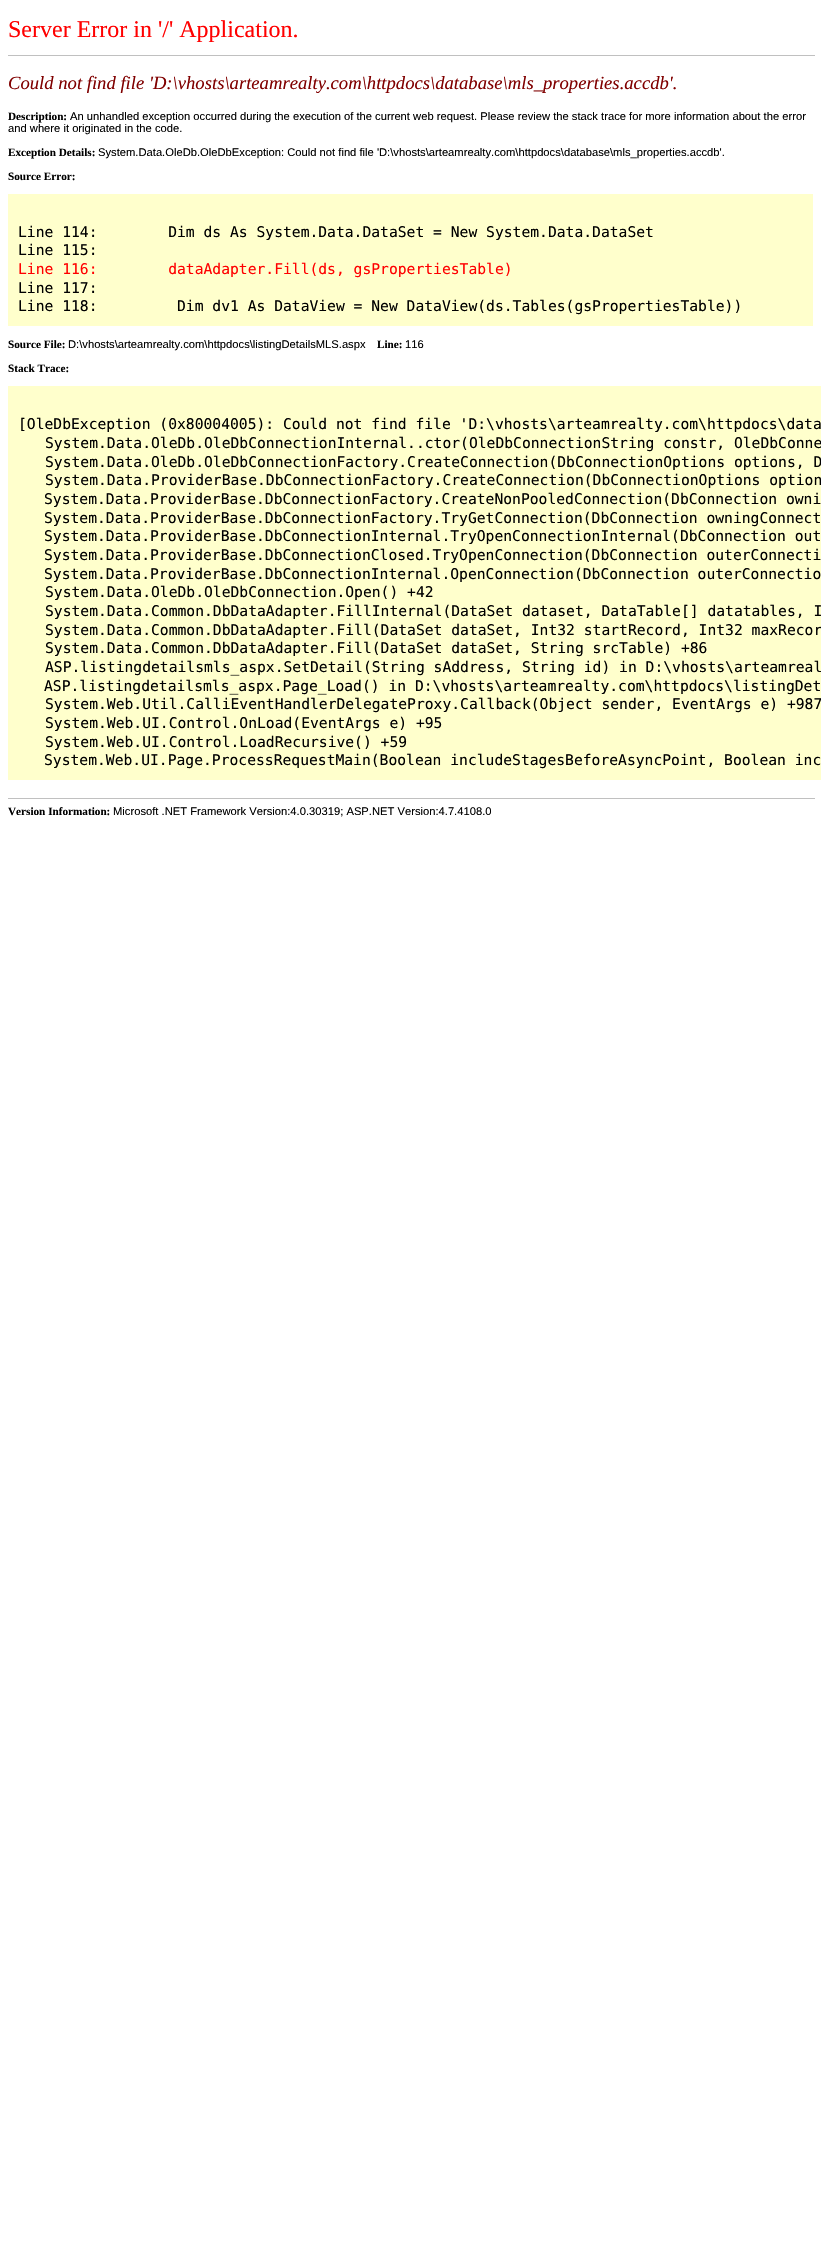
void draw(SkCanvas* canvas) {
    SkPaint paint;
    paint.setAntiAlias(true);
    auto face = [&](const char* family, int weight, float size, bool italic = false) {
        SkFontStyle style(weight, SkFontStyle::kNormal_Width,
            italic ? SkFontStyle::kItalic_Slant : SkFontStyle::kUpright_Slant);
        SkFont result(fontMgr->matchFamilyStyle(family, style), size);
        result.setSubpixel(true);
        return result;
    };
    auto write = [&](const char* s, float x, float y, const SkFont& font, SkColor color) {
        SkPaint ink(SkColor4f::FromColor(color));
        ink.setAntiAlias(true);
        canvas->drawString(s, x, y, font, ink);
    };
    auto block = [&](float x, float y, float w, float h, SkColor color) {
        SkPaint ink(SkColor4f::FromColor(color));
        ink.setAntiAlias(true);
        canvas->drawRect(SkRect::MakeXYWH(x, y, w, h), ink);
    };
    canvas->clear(SK_ColorWHITE);
    auto kFont1 = face("Liberation Serif", 400, 24);
    write("Server Error in '/' Application.", 8, 37, kFont1, SkColorSetRGB(255, 0, 0));
    block(8, 55, 807, 1, SkColorSetRGB(192, 192, 192));
    auto kFont2 = face("Liberation Serif", 400, 18.65f, true);
    write("Could not find file 'D:\\vhosts\\arteamrealty.com\\httpdocs\\database\\mls_properties.accdb'.", 8, 89, kFont2, SkColorSetRGB(128, 0, 0));
    auto kFont3 = face("Liberation Serif", 700, 11.2f);
    write("Description:", 8, 120, kFont3, SK_ColorBLACK);
    auto kFont4 = face("Liberation Sans", 400, 11.2f);
    write("An unhandled exception occurred during the execution of the current web request. Please review the stack trace for more information about the error", 70, 120, kFont4, SK_ColorBLACK);
    write("and where it originated in the code.", 8, 132, kFont4, SK_ColorBLACK);
    write("Exception Details:", 8, 156, kFont3, SK_ColorBLACK);
    write("System.Data.OleDb.OleDbException: Could not find file 'D:\\vhosts\\arteamrealty.com\\httpdocs\\database\\mls_properties.accdb'.", 98, 156, kFont4, SK_ColorBLACK);
    write("Source Error:", 8, 180, kFont3, SK_ColorBLACK);
    block(8, 194, 805, 132, SkColorSetRGB(255, 255, 204));
    auto kFont5 = face("DejaVu Sans Mono", 400, 14.67f);
    write("Line 114:        Dim ds As System.Data.DataSet = New System.Data.DataSet", 18, 237, kFont5, SK_ColorBLACK);
    write("Line 115:", 18, 255, kFont5, SK_ColorBLACK);
    write("Line 116:        dataAdapter.Fill(ds, gsPropertiesTable)", 18, 274, kFont5, SkColorSetRGB(255, 0, 0));
    write("Line 117:", 18, 293, kFont5, SK_ColorBLACK);
    write("Line 118:         Dim dv1 As DataView = New DataView(ds.Tables(gsPropertiesTable))", 18, 311, kFont5, SK_ColorBLACK);
    write("Source File:", 8, 348, kFont3, SK_ColorBLACK);
    write("D:\\vhosts\\arteamrealty.com\\httpdocs\\listingDetailsMLS.aspx", 68, 348, kFont4, SK_ColorBLACK);
    write("Line:", 377, 348, kFont3, SK_ColorBLACK);
    write("116", 405, 348, kFont4, SK_ColorBLACK);
    write("Stack Trace:", 8, 372, kFont3, SK_ColorBLACK);
    block(8, 386, 813, 394, SkColorSetRGB(255, 255, 204));
    write("[OleDbException (0x80004005): Could not find file 'D:\\vhosts\\arteamrealty.com\\httpdocs\\data", 18, 429, kFont5, SK_ColorBLACK);
    write("System.Data.OleDb.OleDbConnectionInternal..ctor(OleDbConnectionString constr, OleDbConne", 45, 448, kFont5, SK_ColorBLACK);
    write("System.Data.OleDb.OleDbConnectionFactory.CreateConnection(DbConnectionOptions options, D", 45, 467, kFont5, SK_ColorBLACK);
    write("System.Data.ProviderBase.DbConnectionFactory.CreateConnection(DbConnectionOptions option", 45, 485, kFont5, SK_ColorBLACK);
    write("System.Data.ProviderBase.DbConnectionFactory.CreateNonPooledConnection(DbConnection owni", 44, 504, kFont5, SK_ColorBLACK);
    write("System.Data.ProviderBase.DbConnectionFactory.TryGetConnection(DbConnection owningConnect", 44, 523, kFont5, SK_ColorBLACK);
    write("System.Data.ProviderBase.DbConnectionInternal.TryOpenConnectionInternal(DbConnection out", 44, 541, kFont5, SK_ColorBLACK);
    write("System.Data.ProviderBase.DbConnectionClosed.TryOpenConnection(DbConnection outerConnecti", 44, 560, kFont5, SK_ColorBLACK);
    write("System.Data.ProviderBase.DbConnectionInternal.OpenConnection(DbConnection outerConnectio", 44, 579, kFont5, SK_ColorBLACK);
    write("System.Data.OleDb.OleDbConnection.Open() +42", 45, 597, kFont5, SK_ColorBLACK);
    write("System.Data.Common.DbDataAdapter.FillInternal(DataSet dataset, DataTable[] datatables, I", 45, 616, kFont5, SK_ColorBLACK);
    write("System.Data.Common.DbDataAdapter.Fill(DataSet dataSet, Int32 startRecord, Int32 maxRecor", 45, 635, kFont5, SK_ColorBLACK);
    write("System.Data.Common.DbDataAdapter.Fill(DataSet dataSet, String srcTable) +86", 45, 653, kFont5, SK_ColorBLACK);
    write("ASP.listingdetailsmls_aspx.SetDetail(String sAddress, String id) in D:\\vhosts\\arteamreal", 45, 672, kFont5, SK_ColorBLACK);
    write("ASP.listingdetailsmls_aspx.Page_Load() in D:\\vhosts\\arteamrealty.com\\httpdocs\\listingDet", 44, 691, kFont5, SK_ColorBLACK);
    write("System.Web.Util.CalliEventHandlerDelegateProxy.Callback(Object sender, EventArgs e) +987", 45, 709, kFont5, SK_ColorBLACK);
    write("System.Web.UI.Control.OnLoad(EventArgs e) +95", 45, 728, kFont5, SK_ColorBLACK);
    write("System.Web.UI.Control.LoadRecursive() +59", 45, 747, kFont5, SK_ColorBLACK);
    write("System.Web.UI.Page.ProcessRequestMain(Boolean includeStagesBeforeAsyncPoint, Boolean inc", 44, 765, kFont5, SK_ColorBLACK);
    block(8, 798, 807, 1, SkColorSetRGB(192, 192, 192));
    write("Version Information:", 8, 815, kFont3, SK_ColorBLACK);
    write("Microsoft .NET Framework Version:4.0.30319; ASP.NET Version:4.7.4108.0", 113, 815, kFont4, SK_ColorBLACK);
}
